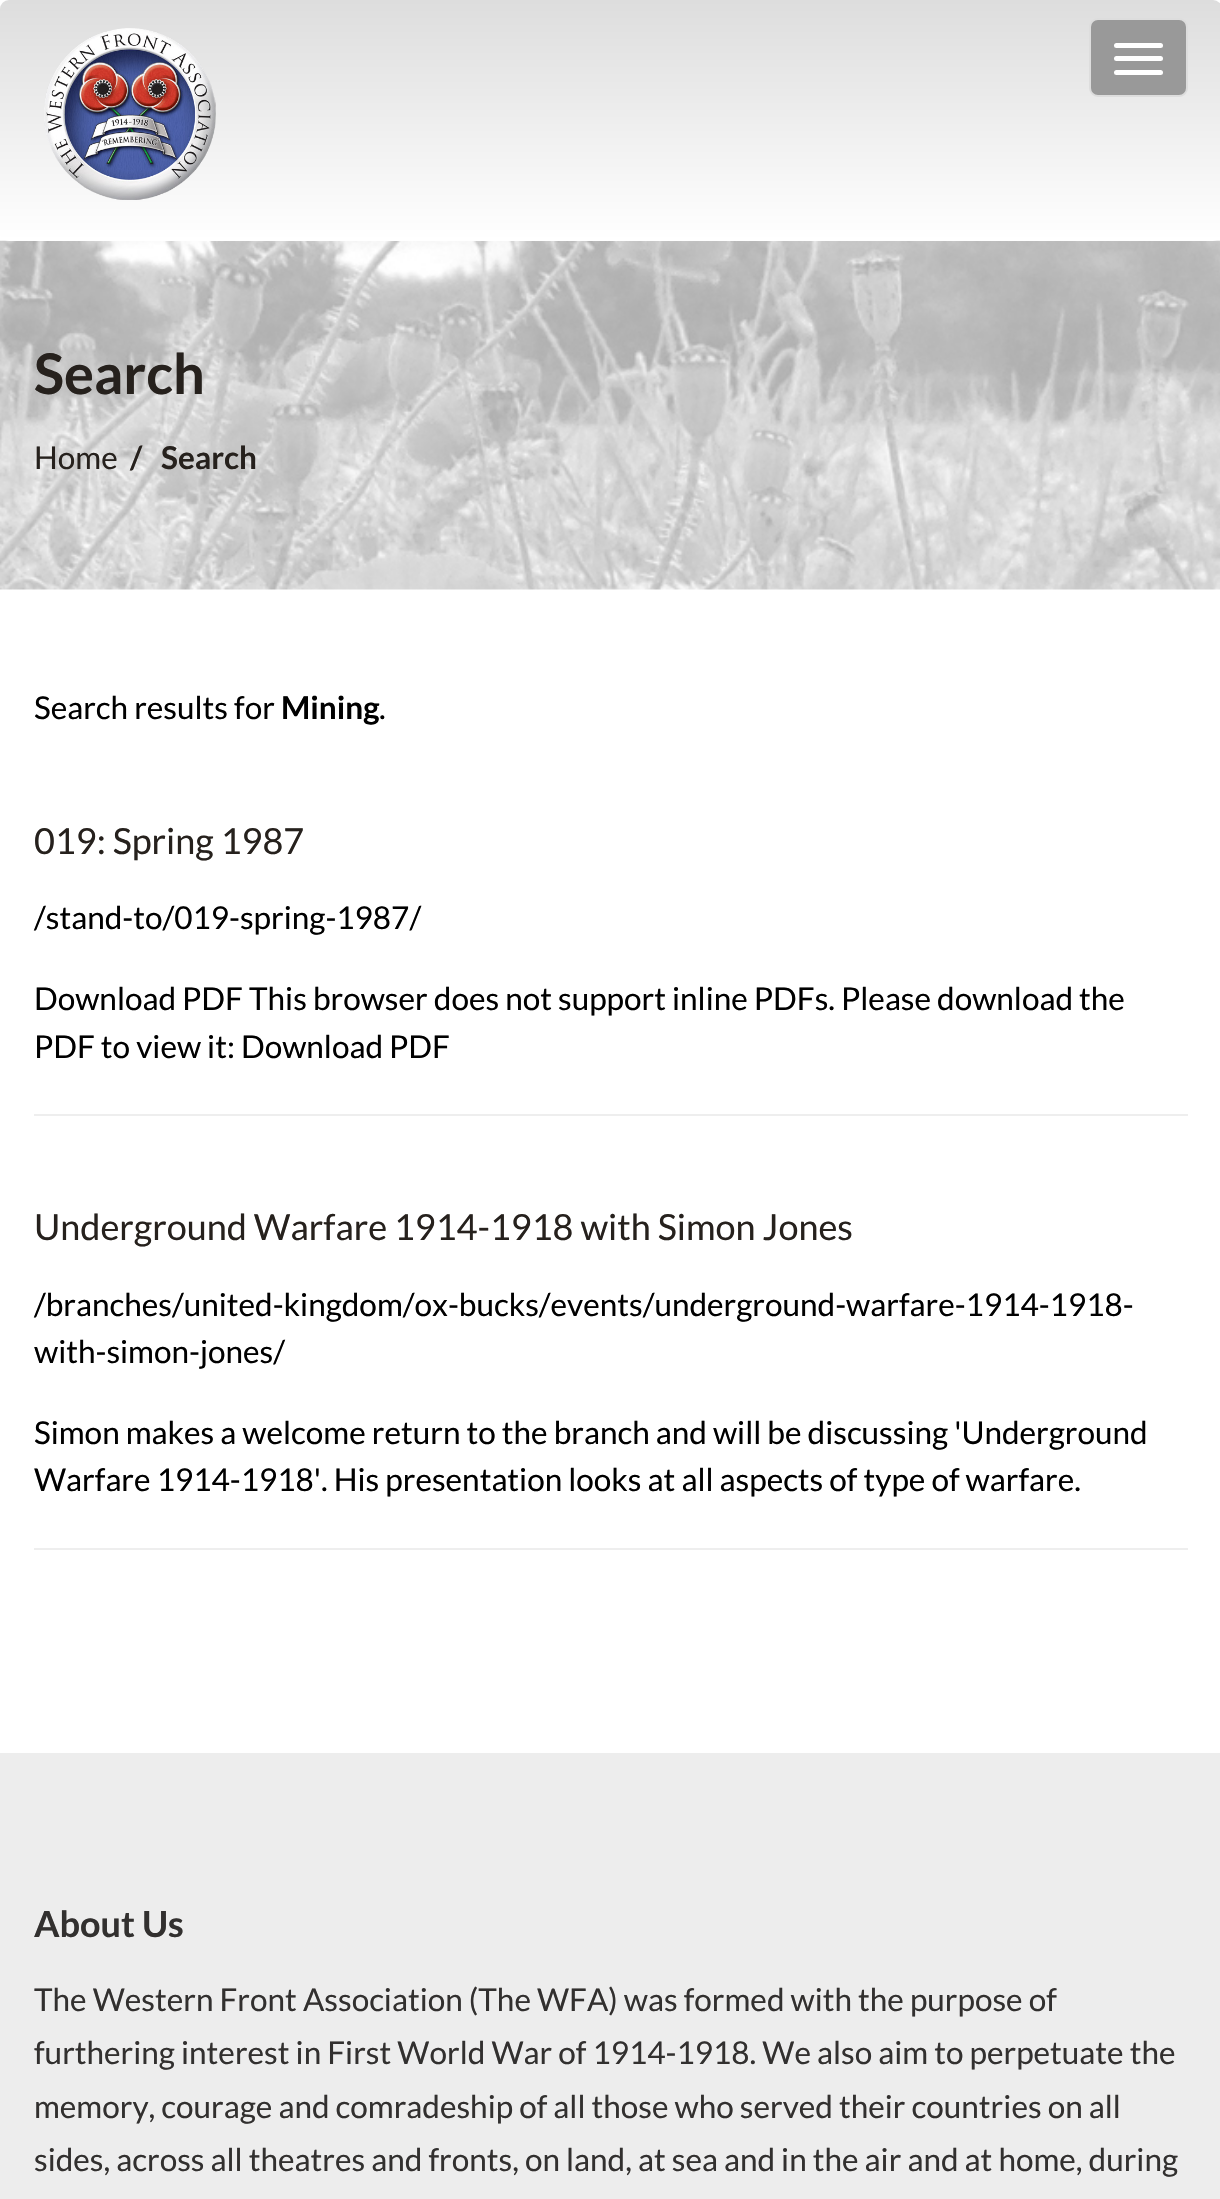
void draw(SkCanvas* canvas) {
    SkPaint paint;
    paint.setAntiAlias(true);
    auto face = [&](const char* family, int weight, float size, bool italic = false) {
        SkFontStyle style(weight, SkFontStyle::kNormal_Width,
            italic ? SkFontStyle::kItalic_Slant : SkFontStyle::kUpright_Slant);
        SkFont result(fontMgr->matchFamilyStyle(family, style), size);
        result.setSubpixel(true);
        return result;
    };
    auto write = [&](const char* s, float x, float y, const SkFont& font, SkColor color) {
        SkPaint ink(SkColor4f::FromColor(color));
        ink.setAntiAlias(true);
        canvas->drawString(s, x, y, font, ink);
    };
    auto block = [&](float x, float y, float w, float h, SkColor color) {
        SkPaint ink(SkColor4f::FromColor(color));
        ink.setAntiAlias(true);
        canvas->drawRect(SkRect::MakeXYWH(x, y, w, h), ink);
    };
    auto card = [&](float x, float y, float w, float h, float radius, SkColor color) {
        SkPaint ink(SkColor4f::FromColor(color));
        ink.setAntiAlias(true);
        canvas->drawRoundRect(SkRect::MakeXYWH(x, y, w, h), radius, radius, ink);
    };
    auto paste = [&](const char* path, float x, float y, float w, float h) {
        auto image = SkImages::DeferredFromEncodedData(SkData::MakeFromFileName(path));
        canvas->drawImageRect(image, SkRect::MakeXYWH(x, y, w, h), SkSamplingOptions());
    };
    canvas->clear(SK_ColorWHITE);
    paste("pic2.png", 0, 240, 1220, 350);
    {
        const SkColor colors[] = {SkColorSetRGB(221, 221, 221), SK_ColorWHITE};
        const float stops[] = {0, 1};
        const SkPoint ends[] = {{611, 0}, {611, 241}};
        paint.setShader(SkGradientShader::MakeLinear(ends, colors, stops, 2, SkTileMode::kClamp));
        paint.setAlpha(255);
    }
    canvas->drawRoundRect(SkRect::MakeXYWH(0, 0, 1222, 241), 9, 9, paint);
    paste("pic1.png", 44, 28, 172, 172);
    paint.setShader(nullptr);
    paint.setColor(SkColorSetRGB(153, 153, 153));
    canvas->drawRoundRect(SkRect::MakeXYWH(1090, 19, 97, 77), 8, 8, paint);
    paint.setStyle(SkPaint::kStroke_Style);
    paint.setStrokeWidth(2);
    paint.setColor(SkColorSetRGB(221, 221, 221));
    canvas->drawRoundRect(SkRect::MakeXYWH(1090, 19, 97, 77), 8, 8, paint);
    card(1114, 43, 49, 5, 2.5f, SK_ColorWHITE);
    card(1114, 56, 49, 5, 2.5f, SK_ColorWHITE);
    card(1114, 70, 49, 5, 2.5f, SK_ColorWHITE);
    auto kFont1 = face("Lato", 700, 56);
    write("Search", 34, 394, kFont1, SkColorSetRGB(38, 33, 29));
    auto kFont2 = face("Lato", 400, 31.5f);
    write("Home", 34, 469, kFont2, SkColorSetRGB(38, 33, 29));
    auto kFont3 = face("Lato", 700, 31.5f);
    write("/", 130, 469, kFont3, SkColorSetRGB(38, 33, 29));
    write("Search", 161, 469, kFont3, SkColorSetRGB(38, 33, 29));
    write("Search results for", 34, 719, kFont2, SK_ColorBLACK);
    write("Mining", 281, 719, kFont3, SK_ColorBLACK);
    write(".", 379, 719, kFont2, SK_ColorBLACK);
    auto kFont4 = face("Lato", 400, 36);
    write("019: Spring 1987", 34, 854, kFont4, SkColorSetRGB(38, 33, 29));
    write("/stand-to/019-spring-1987/", 34, 929, kFont2, SK_ColorBLACK);
    write("Download PDF This browser does not support inline PDFs. Please download the", 34, 1010, kFont2, SK_ColorBLACK);
    write("PDF to view it: Download PDF", 34, 1058, kFont2, SK_ColorBLACK);
    block(34, 1114, 1154, 2, SkColorSetRGB(238, 238, 238));
    write("Underground Warfare 1914-1918 with Simon Jones", 34, 1240, kFont4, SkColorSetRGB(38, 33, 29));
    write("/branches/united-kingdom/ox-bucks/events/underground-warfare-1914-1918-", 34, 1316, kFont2, SK_ColorBLACK);
    write("with-simon-jones/", 34, 1363, kFont2, SK_ColorBLACK);
    write("Simon makes a welcome return to the branch and will be discussing 'Underground", 34, 1444, kFont2, SK_ColorBLACK);
    write("Warfare 1914-1918'. His presentation looks at all aspects of type of warfare.", 34, 1491, kFont2, SK_ColorBLACK);
    block(34, 1548, 1154, 2, SkColorSetRGB(238, 238, 238));
    block(0, 1753, 1220, 446, SkColorSetRGB(237, 237, 237));
    auto kFont5 = face("Lato", 700, 36);
    write("About Us", 34, 1937, kFont5, SkColorSetRGB(50, 48, 47));
    write("The Western Front Association (The WFA) was formed with the purpose of", 34, 2011, kFont2, SkColorSetRGB(50, 48, 47));
    write("furthering interest in First World War of 1914-1918. We also aim to perpetuate the", 34, 2064, kFont2, SkColorSetRGB(50, 48, 47));
    write("memory, courage and comradeship of all those who served their countries on all", 34, 2118, kFont2, SkColorSetRGB(50, 48, 47));
    write("sides, across all theatres and fronts, on land, at sea and in the air and at home, during", 34, 2171, kFont2, SkColorSetRGB(50, 48, 47));
}
